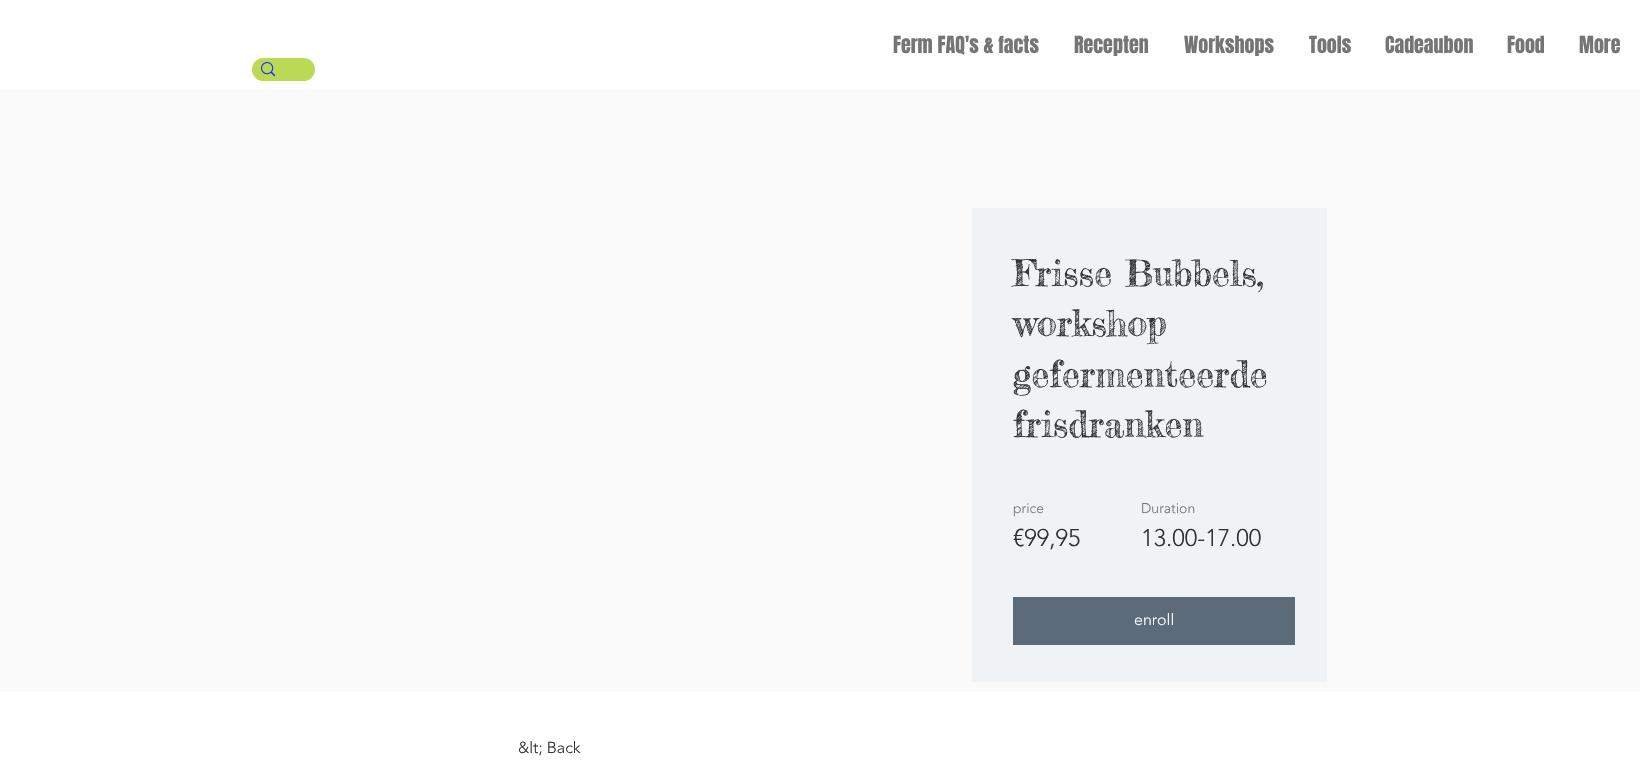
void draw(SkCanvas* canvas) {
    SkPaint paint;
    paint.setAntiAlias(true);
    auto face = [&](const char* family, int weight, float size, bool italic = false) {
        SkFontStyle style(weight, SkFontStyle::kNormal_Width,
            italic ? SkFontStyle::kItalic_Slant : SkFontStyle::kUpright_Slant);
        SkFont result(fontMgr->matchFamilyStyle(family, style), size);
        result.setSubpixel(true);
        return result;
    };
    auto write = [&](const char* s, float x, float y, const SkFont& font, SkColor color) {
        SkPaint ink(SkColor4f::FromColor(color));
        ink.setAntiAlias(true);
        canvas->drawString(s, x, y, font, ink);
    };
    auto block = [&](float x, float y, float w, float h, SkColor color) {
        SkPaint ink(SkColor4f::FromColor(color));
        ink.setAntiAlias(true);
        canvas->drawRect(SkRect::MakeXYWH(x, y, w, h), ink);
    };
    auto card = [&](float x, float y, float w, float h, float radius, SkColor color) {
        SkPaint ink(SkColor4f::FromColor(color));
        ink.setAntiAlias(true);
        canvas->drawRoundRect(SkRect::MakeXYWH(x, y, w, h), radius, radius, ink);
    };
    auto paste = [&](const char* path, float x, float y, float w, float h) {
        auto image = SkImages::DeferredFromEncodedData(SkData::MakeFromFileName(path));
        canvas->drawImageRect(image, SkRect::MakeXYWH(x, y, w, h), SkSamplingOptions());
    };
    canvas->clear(SK_ColorWHITE);
    auto kFont1 = face("Anton", 400, 20);
    write("Ferm FAQ's & facts", 893, 53, kFont1, SkColorSetRGB(117, 117, 117));
    write("Recepten", 1074, 53, kFont1, SkColorSetRGB(117, 117, 117));
    write("Workshops", 1184, 53, kFont1, SkColorSetRGB(117, 117, 117));
    write("Tools", 1309, 53, kFont1, SkColorSetRGB(117, 117, 117));
    write("Cadeaubon", 1385, 53, kFont1, SkColorSetRGB(117, 117, 117));
    write("Food", 1507, 53, kFont1, SkColorSetRGB(117, 117, 117));
    write("More", 1579, 53, kFont1, SkColorSetRGB(117, 117, 117));
    card(252, 58, 63, 23, 11.5f, SkColorSetRGB(186, 218, 85));
    paste("pic1.png", 261, 62, 14, 15);
    block(0, 90, 1640, 602, SkColorSetRGB(250, 250, 250));
    block(972, 208, 355, 474, SkColorSetRGB(240, 243, 246));
    auto kFont2 = face("Fredericka the Great", 400, 36);
    write("Frisse Bubbels,", 1013, 286, kFont2, SkColorSetRGB(48, 49, 49));
    write("workshop", 1013, 336, kFont2, SkColorSetRGB(48, 49, 49));
    write("gefermenteerde", 1013, 387, kFont2, SkColorSetRGB(48, 49, 49));
    write("frisdranken", 1013, 437, kFont2, SkColorSetRGB(48, 49, 49));
    auto kFont3 = face("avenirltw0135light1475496", 300, 14);
    write("price", 1013, 513, kFont3, SkColorSetRGB(117, 117, 117));
    write("Duration", 1141, 513, kFont3, SkColorSetRGB(117, 117, 117));
    auto kFont4 = face("avenirltw0135light1475496", 300, 24);
    write("€99,95", 1013, 546, kFont4, SkColorSetRGB(48, 49, 49));
    write("13.00-17.00", 1141, 546, kFont4, SkColorSetRGB(48, 49, 49));
    block(1013, 597, 282, 48, SkColorSetRGB(92, 107, 122));
    auto kFont5 = face("avenirltw0135light1475496", 300, 16);
    write("enroll", 1134, 625, kFont5, SK_ColorWHITE);
    write("&lt; Back", 518, 753, kFont5, SkColorSetRGB(48, 49, 49));
}
